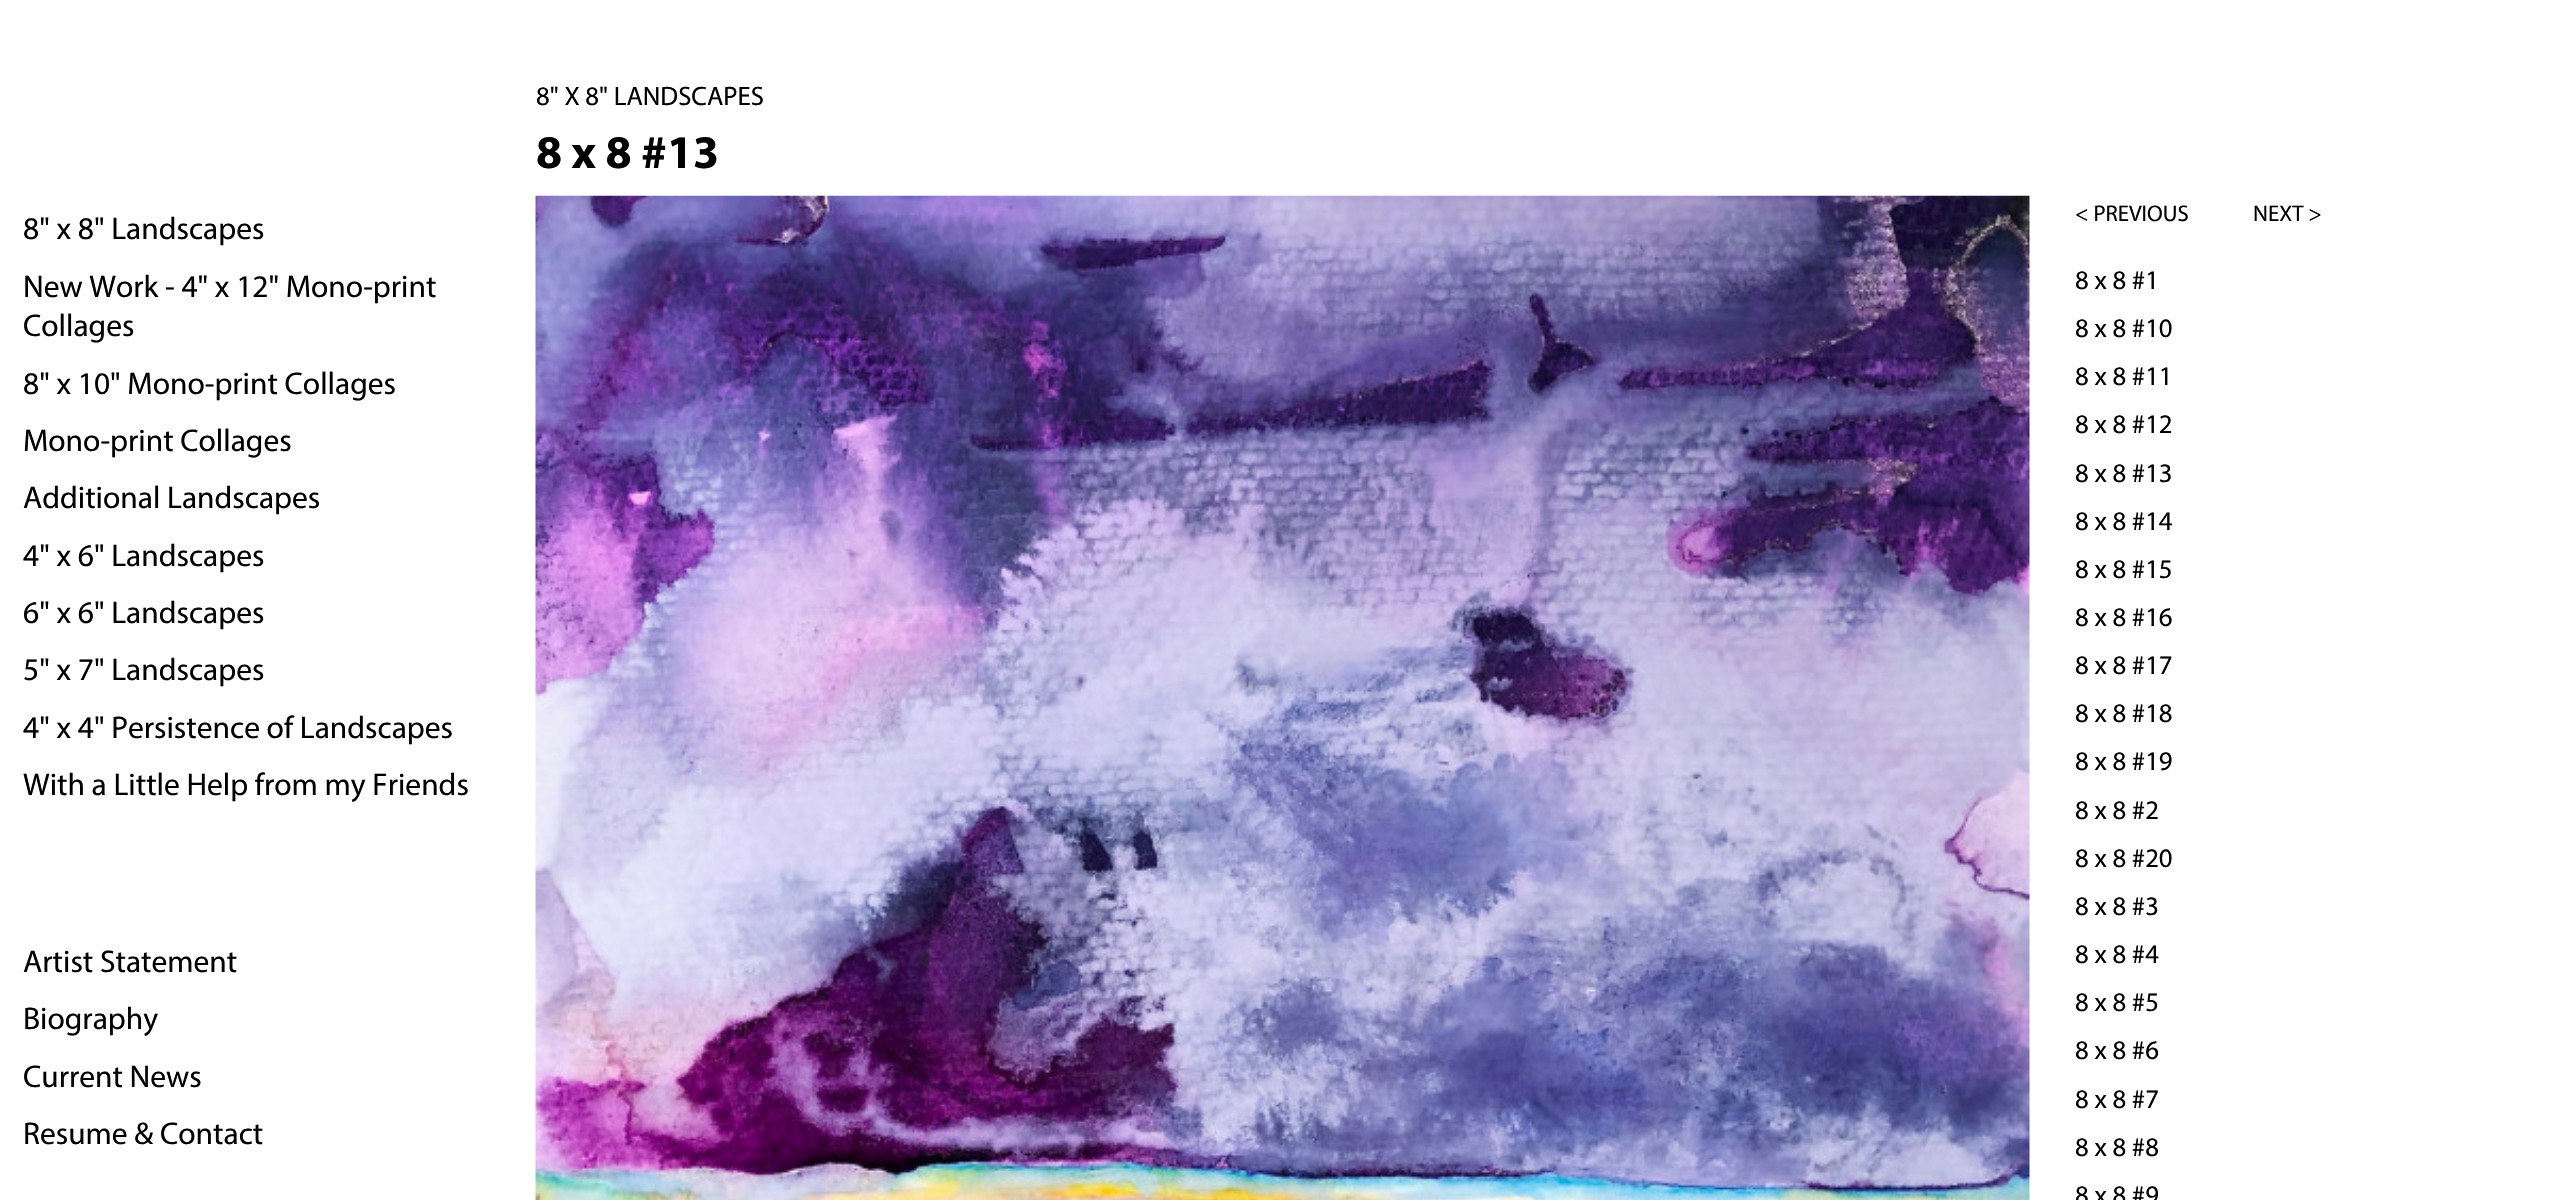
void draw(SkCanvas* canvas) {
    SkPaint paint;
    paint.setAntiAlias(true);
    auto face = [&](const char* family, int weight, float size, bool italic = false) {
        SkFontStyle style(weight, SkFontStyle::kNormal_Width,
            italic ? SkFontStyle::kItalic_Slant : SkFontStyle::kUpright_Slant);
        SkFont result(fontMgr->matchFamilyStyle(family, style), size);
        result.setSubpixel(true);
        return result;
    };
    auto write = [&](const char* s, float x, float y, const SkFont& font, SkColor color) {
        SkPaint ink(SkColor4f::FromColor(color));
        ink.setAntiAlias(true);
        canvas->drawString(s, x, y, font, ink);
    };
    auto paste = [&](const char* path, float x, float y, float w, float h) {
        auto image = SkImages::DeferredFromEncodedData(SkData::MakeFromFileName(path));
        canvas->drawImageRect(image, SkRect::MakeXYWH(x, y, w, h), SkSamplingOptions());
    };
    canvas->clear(SK_ColorWHITE);
    auto kFont1 = face("Myriad", 400, 26.75f);
    write("8\" X 8\" LANDSCAPES", 536, 105, kFont1, SK_ColorBLACK);
    auto kFont2 = face("Myriad", 700, 47);
    write("8 x 8 #13", 536, 168, kFont2, SK_ColorBLACK);
    paste("pic1.png", 535, 195, 1495, 1005);
    auto kFont3 = face("Myriad", 400, 31.5f);
    write("8\" x 8\" Landscapes", 23, 239, kFont3, SK_ColorBLACK);
    write("New Work - 4\" x 12\" Mono-print", 23, 297, kFont3, SK_ColorBLACK);
    write("Collages", 23, 336, kFont3, SK_ColorBLACK);
    write("8\" x 10\" Mono-print Collages", 23, 394, kFont3, SK_ColorBLACK);
    write("Mono-print Collages", 23, 451, kFont3, SK_ColorBLACK);
    write("Additional Landscapes", 23, 508, kFont3, SK_ColorBLACK);
    write("4\" x 6\" Landscapes", 23, 566, kFont3, SK_ColorBLACK);
    write("6\" x 6\" Landscapes", 23, 623, kFont3, SK_ColorBLACK);
    write("5\" x 7\" Landscapes", 23, 680, kFont3, SK_ColorBLACK);
    write("4\" x 4\" Persistence of Landscapes", 23, 738, kFont3, SK_ColorBLACK);
    write("With a Little Help from my Friends", 23, 795, kFont3, SK_ColorBLACK);
    write("Artist Statement", 23, 972, kFont3, SK_ColorBLACK);
    write("Biography", 23, 1029, kFont3, SK_ColorBLACK);
    write("Current News", 23, 1087, kFont3, SK_ColorBLACK);
    write("Resume & Contact", 23, 1144, kFont3, SK_ColorBLACK);
    auto kFont4 = face("Myriad", 400, 22.75f);
    write("< PREVIOUS", 2075, 221, kFont4, SK_ColorBLACK);
    write("NEXT >", 2253, 221, kFont4, SK_ColorBLACK);
    write("8 x 8 #1", 2075, 289, kFont1, SK_ColorBLACK);
    write("8 x 8 #10", 2075, 337, kFont1, SK_ColorBLACK);
    write("8 x 8 #11", 2075, 385, kFont1, SK_ColorBLACK);
    write("8 x 8 #12", 2075, 433, kFont1, SK_ColorBLACK);
    write("8 x 8 #13", 2075, 482, kFont1, SK_ColorBLACK);
    write("8 x 8 #14", 2075, 530, kFont1, SK_ColorBLACK);
    write("8 x 8 #15", 2075, 578, kFont1, SK_ColorBLACK);
    write("8 x 8 #16", 2075, 626, kFont1, SK_ColorBLACK);
    write("8 x 8 #17", 2075, 674, kFont1, SK_ColorBLACK);
    write("8 x 8 #18", 2075, 722, kFont1, SK_ColorBLACK);
    write("8 x 8 #19", 2075, 770, kFont1, SK_ColorBLACK);
    write("8 x 8 #2", 2075, 819, kFont1, SK_ColorBLACK);
    write("8 x 8 #20", 2075, 867, kFont1, SK_ColorBLACK);
    write("8 x 8 #3", 2075, 915, kFont1, SK_ColorBLACK);
    write("8 x 8 #4", 2075, 963, kFont1, SK_ColorBLACK);
    write("8 x 8 #5", 2075, 1011, kFont1, SK_ColorBLACK);
    write("8 x 8 #6", 2075, 1059, kFont1, SK_ColorBLACK);
    write("8 x 8 #7", 2075, 1108, kFont1, SK_ColorBLACK);
    write("8 x 8 #8", 2075, 1156, kFont1, SK_ColorBLACK);
    write("8 x 8 #9", 2075, 1204, kFont1, SK_ColorBLACK);
}
